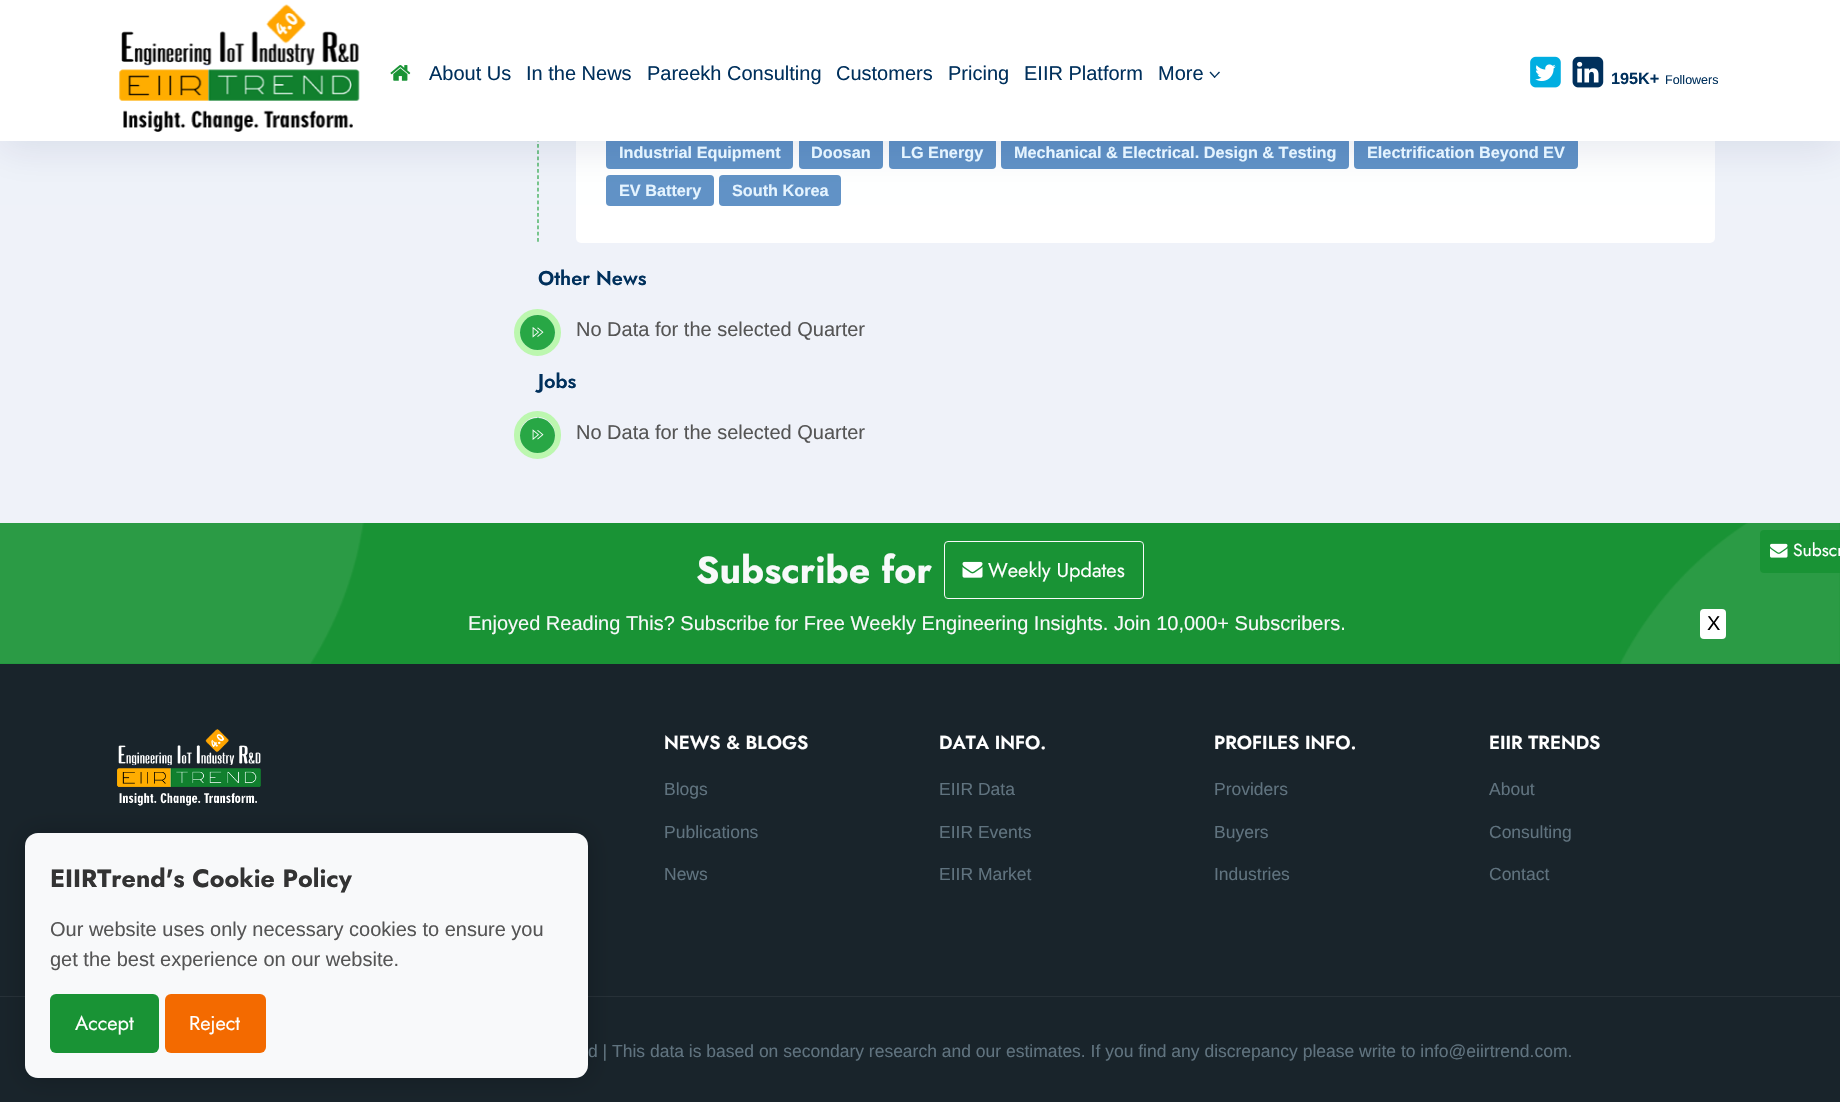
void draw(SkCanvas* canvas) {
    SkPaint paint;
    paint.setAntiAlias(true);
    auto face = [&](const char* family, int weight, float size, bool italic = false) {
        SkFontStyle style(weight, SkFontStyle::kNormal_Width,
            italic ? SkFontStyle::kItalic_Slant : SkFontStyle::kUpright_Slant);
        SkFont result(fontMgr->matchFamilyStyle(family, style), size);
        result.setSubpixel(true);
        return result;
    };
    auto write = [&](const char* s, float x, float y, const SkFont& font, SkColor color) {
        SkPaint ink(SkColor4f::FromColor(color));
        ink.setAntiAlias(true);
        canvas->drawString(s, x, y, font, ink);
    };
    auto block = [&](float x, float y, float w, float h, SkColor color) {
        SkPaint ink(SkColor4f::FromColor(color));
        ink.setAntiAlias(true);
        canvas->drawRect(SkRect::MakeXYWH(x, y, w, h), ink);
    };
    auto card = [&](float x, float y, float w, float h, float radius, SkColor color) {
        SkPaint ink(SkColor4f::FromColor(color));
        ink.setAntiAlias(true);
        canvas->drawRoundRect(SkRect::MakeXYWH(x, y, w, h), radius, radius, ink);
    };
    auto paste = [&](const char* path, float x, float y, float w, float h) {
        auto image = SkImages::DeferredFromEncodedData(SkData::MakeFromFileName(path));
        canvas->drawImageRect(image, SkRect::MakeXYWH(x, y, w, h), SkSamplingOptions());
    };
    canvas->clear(SkColorSetRGB(239, 242, 249));
    paint.setStyle(SkPaint::kStroke_Style);
    paint.setStrokeWidth(1.2f);
    paint.setColor(SkColorSetRGB(40, 167, 69));
    paint.setPathEffect(SkDashPathEffect::Make({{3.75f, 2.52f}}, 0));
    canvas->drawPath(SkPathBuilder().moveTo(538, -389).lineTo(538, 242.5f).detach(), paint);
    paint.setPathEffect(nullptr);
    card(576, -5, 1139, 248, 5, SK_ColorWHITE);
    card(606, 138, 187, 31, 4, SkColorSetRGB(97, 146, 198));
    card(799, 138, 84, 31, 4, SkColorSetRGB(97, 146, 198));
    card(889, 138, 107, 31, 4, SkColorSetRGB(97, 146, 198));
    card(1001, 138, 348, 31, 4, SkColorSetRGB(97, 146, 198));
    card(1354, 138, 224, 31, 4, SkColorSetRGB(97, 146, 198));
    card(606, 175, 108, 31, 4, SkColorSetRGB(97, 146, 198));
    card(719, 175, 122, 31, 4, SkColorSetRGB(97, 146, 198));
    paint.setStyle(SkPaint::kFill_Style);
    paint.setColor(SkColorSetARGB(26, 0, 22, 84));
    paint.setMaskFilter(SkMaskFilter::MakeBlur(kNormal_SkBlurStyle, 19));
    canvas->drawRect(SkRect::MakeXYWH(0, 6, 1840, 142), paint);
    paint.setMaskFilter(nullptr);
    block(0, 0, 1840, 141, SK_ColorWHITE);
    paste("pic1.png", 119, 4, 241, 128);
    paste("pic2.png", 390, 65, 21, 16);
    auto kFont1 = face("Liberation Sans", 400, 20);
    write("About Us", 429, 80, kFont1, SkColorSetRGB(0, 48, 92));
    write("In the News", 526, 80, kFont1, SkColorSetRGB(0, 48, 92));
    write("Pareekh Consulting", 647, 80, kFont1, SkColorSetRGB(0, 48, 92));
    write("Customers", 836, 80, kFont1, SkColorSetRGB(0, 48, 92));
    write("Pricing", 948, 80, kFont1, SkColorSetRGB(0, 48, 92));
    write("EIIR Platform", 1024, 80, kFont1, SkColorSetRGB(0, 48, 92));
    write("More", 1158, 80, kFont1, SkColorSetRGB(0, 48, 92));
    paint.setColor(SkColorSetRGB(0, 48, 92));
    canvas->drawPath(SkPathBuilder().moveTo(1219, 71.5f).lineTo(1220, 72.5f).lineTo(1214.5f, 78).lineTo(1214, 77).close().detach(), paint);
    canvas->drawPath(SkPathBuilder().moveTo(1210.5f, 71.5f).lineTo(1215.5f, 77).lineTo(1214.5f, 78).lineTo(1209.5f, 72.5f).close().detach(), paint);
    paste("pic3.png", 1530, 56, 31, 32);
    paste("pic4.png", 1572, 56, 32, 32);
    auto kFont2 = face("Liberation Sans", 700, 16.25f);
    write("195K+", 1611, 84, kFont2, SkColorSetRGB(0, 48, 92));
    auto kFont3 = face("Liberation Sans", 400, 12.5f);
    write("Followers", 1665, 84, kFont3, SkColorSetRGB(0, 48, 92));
    write("Industrial Equipment", 619, 158, kFont2, SkColorSetRGB(229, 244, 255));
    write("Doosan", 811, 158, kFont2, SkColorSetRGB(229, 244, 255));
    write("LG Energy", 901, 158, kFont2, SkColorSetRGB(229, 244, 255));
    write("Mechanical & Electrical. Design & Testing", 1014, 158, kFont2, SkColorSetRGB(229, 244, 255));
    write("Electrification Beyond EV", 1367, 158, kFont2, SkColorSetRGB(229, 244, 255));
    write("EV Battery", 619, 196, kFont2, SkColorSetRGB(229, 244, 255));
    write("South Korea", 732, 196, kFont2, SkColorSetRGB(229, 244, 255));
    auto kFont4 = face("Jost", 600, 20);
    write("Other News", 538, 285, kFont4, SkColorSetRGB(0, 48, 92));
    paint.setStyle(SkPaint::kStroke_Style);
    paint.setColor(SkColorSetRGB(40, 167, 69));
    paint.setPathEffect(SkDashPathEffect::Make({{3.75f, 2.81f}}, 0));
    canvas->drawPath(SkPathBuilder().moveTo(538, 315).lineTo(538, 345).detach(), paint);
    paint.setPathEffect(nullptr);
    paint.setStrokeWidth(6);
    paint.setColor(SkColorSetRGB(188, 247, 175));
    canvas->drawCircle(537.5f, 332.5f, 20.5f, paint);
    paint.setStyle(SkPaint::kFill_Style);
    paint.setColor(SkColorSetRGB(40, 167, 69));
    canvas->drawCircle(537.5f, 332.5f, 17.5f, paint);
    paste("pic5.png", 532, 327, 12, 11);
    write("No Data for the selected Quarter", 576, 336, kFont1, SkColorSetRGB(85, 85, 85));
    write("Jobs", 538, 388, kFont4, SkColorSetRGB(0, 48, 92));
    paint.setStyle(SkPaint::kStroke_Style);
    paint.setStrokeWidth(1.2f);
    paint.setPathEffect(SkDashPathEffect::Make({{3.75f, 2.81f}}, 0));
    canvas->drawPath(SkPathBuilder().moveTo(538, 417.5f).lineTo(538, 447.5f).detach(), paint);
    paint.setPathEffect(nullptr);
    paint.setStrokeWidth(6);
    paint.setColor(SkColorSetRGB(188, 247, 175));
    canvas->drawRoundRect(SkRect::MakeXYWH(517, 414, 41, 42), 20.5f, 20.5f, paint);
    paint.setStyle(SkPaint::kFill_Style);
    paint.setColor(SkColorSetRGB(40, 167, 69));
    canvas->drawCircle(537.5f, 435.5f, 17.5f, paint);
    paste("pic6.png", 532, 429, 12, 11);
    write("No Data for the selected Quarter", 576, 439, kFont1, SkColorSetRGB(85, 85, 85));
    block(0, 523, 1840, 141, SkColorSetRGB(25, 147, 53));
    paste("pic7.png", 0, 523, 1840, 141);
    auto kFont5 = face("Jost", 700, 37.5f);
    write("Subscribe for", 696, 583, kFont5, SkColorSetRGB(248, 249, 250));
    paint.setStyle(SkPaint::kStroke_Style);
    paint.setStrokeWidth(1);
    paint.setColor(SkColorSetRGB(248, 249, 250));
    canvas->drawRoundRect(SkRect::MakeXYWH(944.5f, 541.5f, 199, 57), 3.5f, 3.5f, paint);
    paste("pic8.png", 962, 561, 21, 17);
    auto kFont6 = face("Jost", 400, 20);
    write("Weekly Updates", 988, 577, kFont6, SK_ColorWHITE);
    write("Enjoyed Reading This? Subscribe for Free Weekly Engineering Insights. Join 10,000+ Subscribers.", 468, 630, kFont1, SkColorSetRGB(248, 249, 250));
    card(1700, 609, 26, 30, 4, SK_ColorWHITE);
    write("X", 1707, 630, kFont1, SK_ColorBLACK);
    block(0, 664, 1840, 438, SkColorSetRGB(25, 36, 43));
    paste("pic9.png", 117, 729, 144, 77);
    block(0, 996, 1840, 1, SkColorSetRGB(39, 49, 56));
    paint.setStyle(SkPaint::kFill_Style);
    paint.setColor(SkColorSetARGB(51, 0, 0, 0));
    paint.setMaskFilter(SkMaskFilter::MakeBlur(kNormal_SkBlurStyle, 12.5f));
    canvas->drawRoundRect(SkRect::MakeXYWH(25, 833, 563, 245), 13, 13, paint);
    paint.setMaskFilter(nullptr);
    card(25, 833, 563, 245, 13, SkColorSetRGB(248, 249, 250));
    auto kFont7 = face("Jost", 700, 25);
    write("EIIRTrend's Cookie Policy", 50, 887, kFont7, SkColorSetRGB(51, 51, 51));
    write("Our website uses only necessary cookies to ensure you", 50, 936, kFont1, SkColorSetRGB(85, 85, 85));
    write("get the best experience on our website.", 50, 966, kFont1, SkColorSetRGB(85, 85, 85));
    card(50, 994, 109, 59, 6, SkColorSetRGB(25, 147, 53));
    write("Accept", 75, 1030, kFont6, SK_ColorWHITE);
    card(165, 994, 101, 59, 6, SkColorSetRGB(243, 106, 0));
    write("Reject", 189, 1030, kFont6, SK_ColorWHITE);
    auto kFont8 = face("Jost", 600, 18.75f);
    write("NEWS & BLOGS", 664, 749, kFont8, SK_ColorWHITE);
    auto kFont9 = face("Liberation Sans", 400, 17.5f);
    write("Blogs", 664, 795, kFont9, SkColorSetRGB(96, 115, 127));
    write("Publications", 664, 838, kFont9, SkColorSetRGB(96, 115, 127));
    write("News", 664, 880, kFont9, SkColorSetRGB(96, 115, 127));
    write("DATA INFO.", 939, 749, kFont8, SK_ColorWHITE);
    write("EIIR Data", 939, 795, kFont9, SkColorSetRGB(96, 115, 127));
    write("EIIR Events", 939, 838, kFont9, SkColorSetRGB(96, 115, 127));
    write("EIIR Market", 939, 880, kFont9, SkColorSetRGB(96, 115, 127));
    write("PROFILES INFO.", 1214, 749, kFont8, SK_ColorWHITE);
    write("Providers", 1214, 795, kFont9, SkColorSetRGB(96, 115, 127));
    write("Buyers", 1214, 838, kFont9, SkColorSetRGB(96, 115, 127));
    write("Industries", 1214, 880, kFont9, SkColorSetRGB(96, 115, 127));
    write("EIIR TRENDS", 1489, 749, kFont8, SK_ColorWHITE);
    write("About", 1489, 795, kFont9, SkColorSetRGB(96, 115, 127));
    write("Consulting", 1489, 838, kFont9, SkColorSetRGB(96, 115, 127));
    write("Contact", 1489, 880, kFont9, SkColorSetRGB(96, 115, 127));
    write("d | This data is based on secondary research and our estimates. If you find any discrepancy please write to info@eiirtrend.com.", 588, 1057, kFont9, SkColorSetRGB(96, 115, 127));
    card(1760, 530, 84, 43, 4, SkColorSetRGB(25, 147, 53));
    paste("pic10.png", 1770, 543, 18, 15);
    auto kFont10 = face("Jost", 400, 17.5f);
    write("Subscr", 1793, 556, kFont10, SK_ColorWHITE);
}
